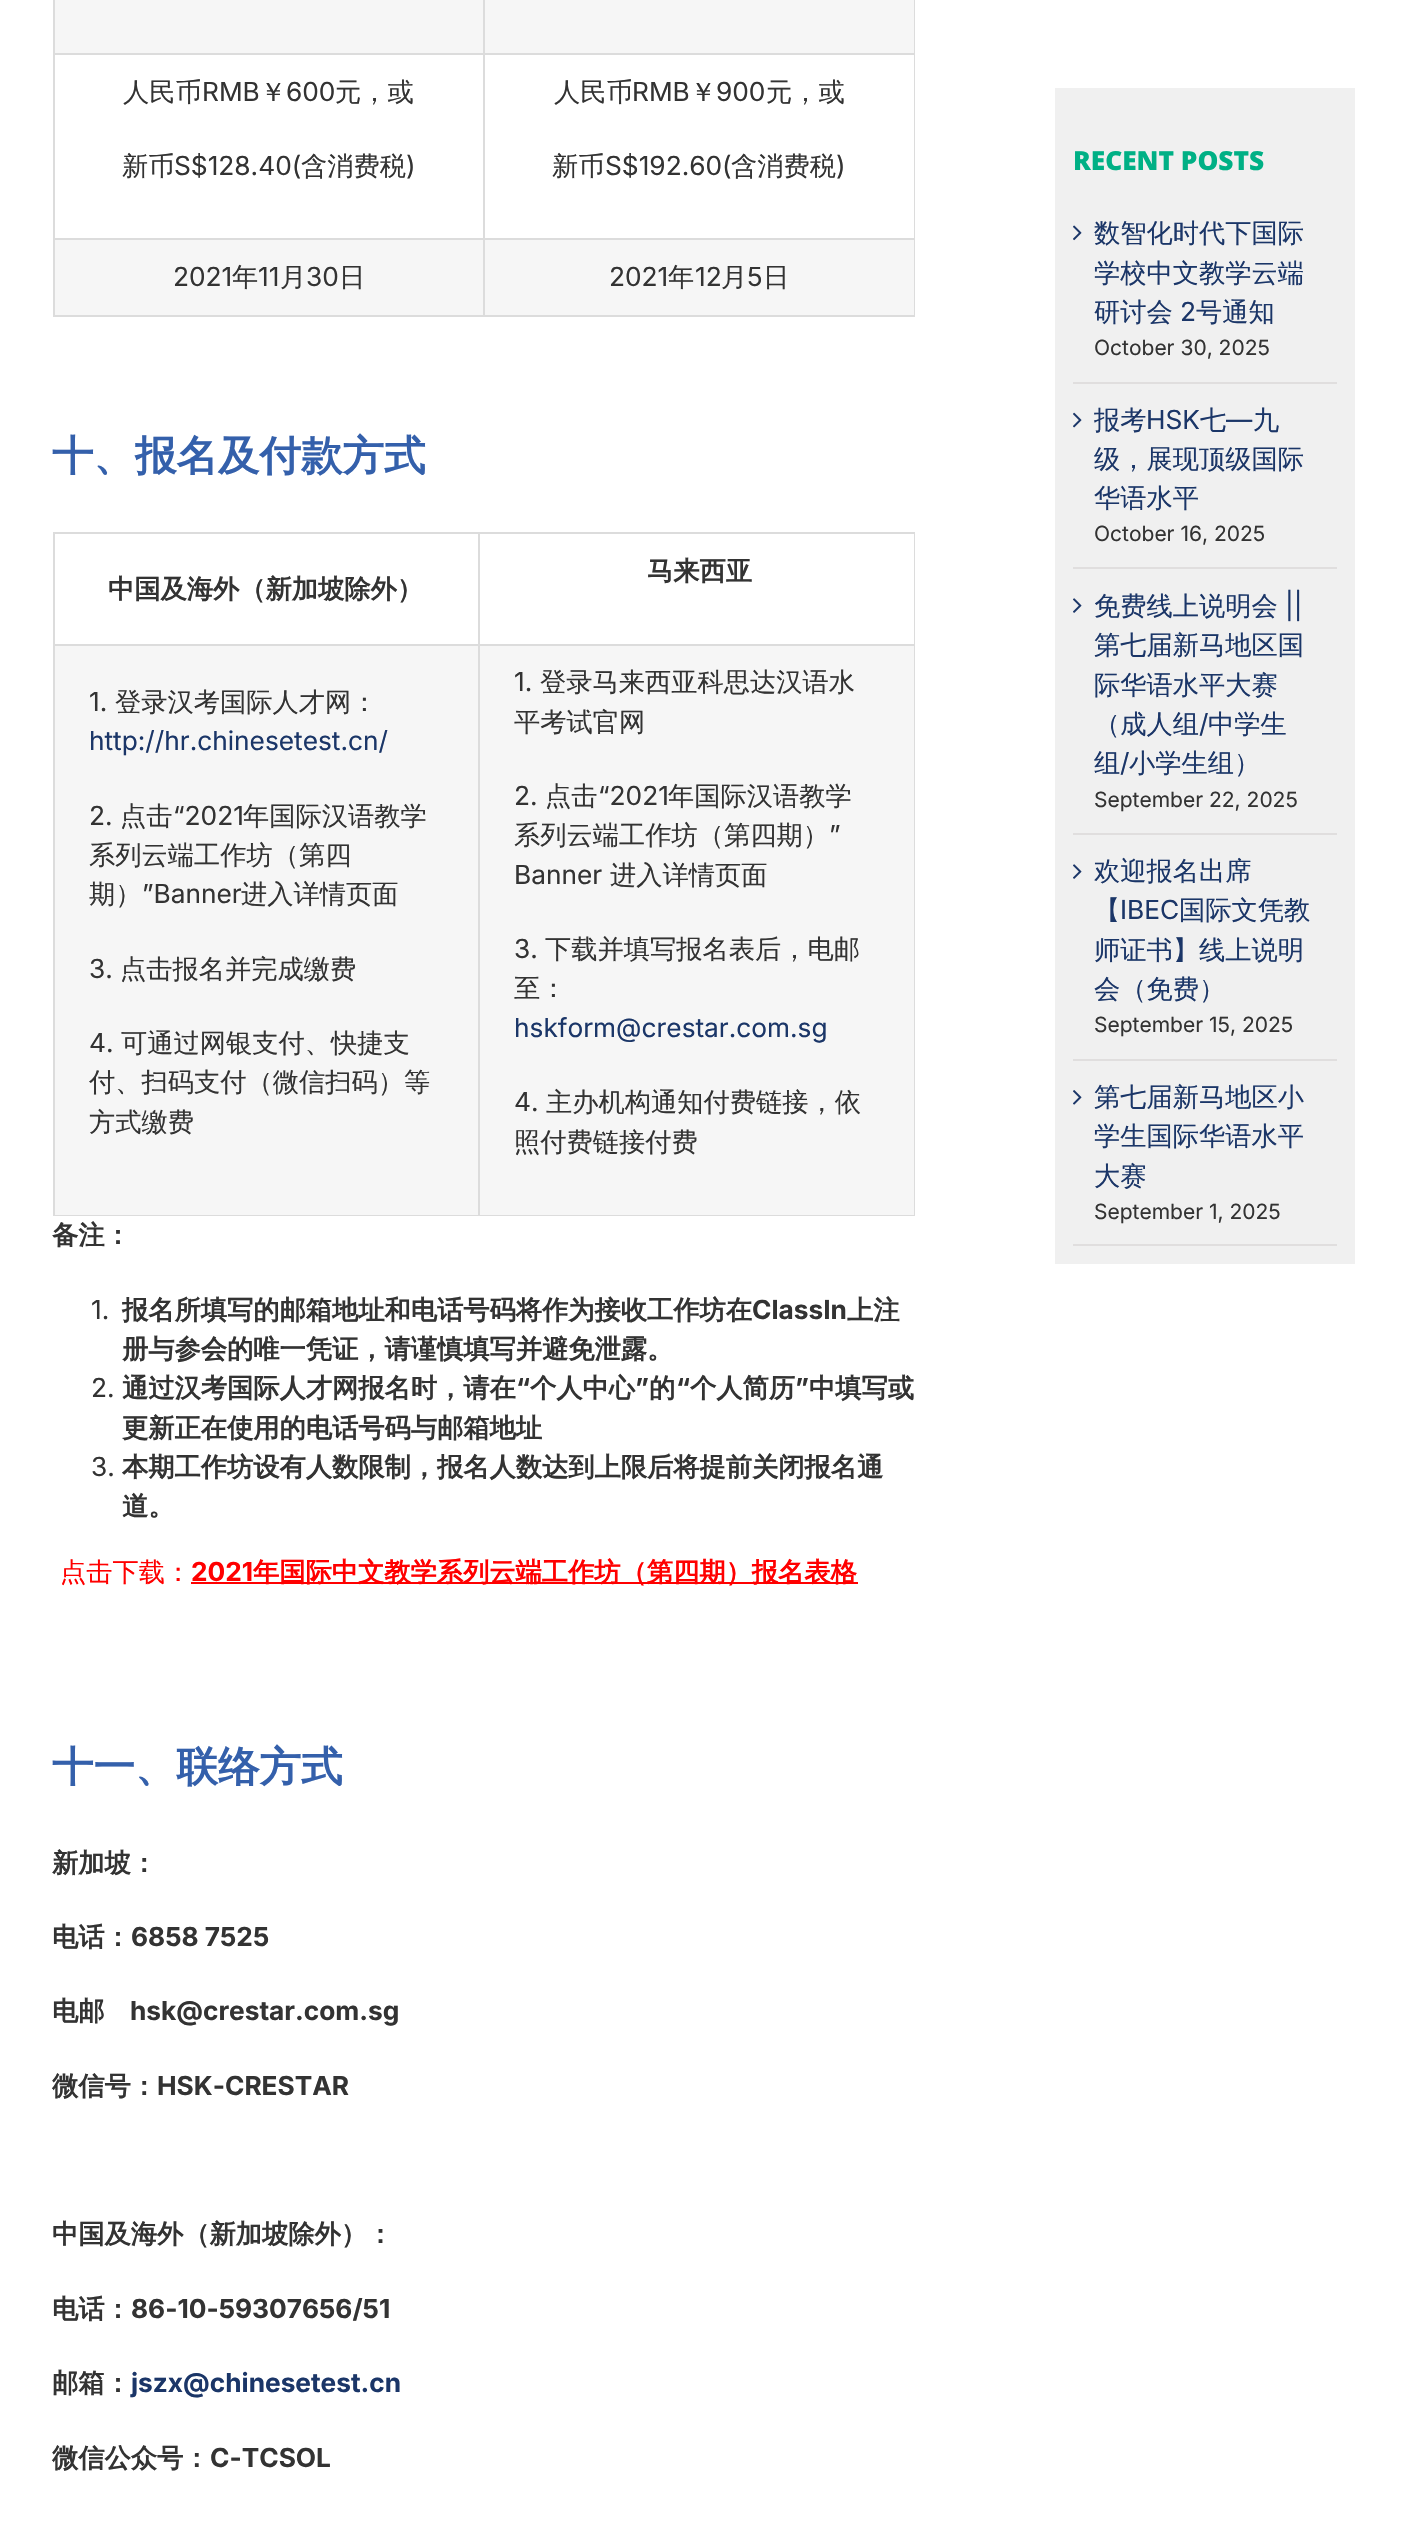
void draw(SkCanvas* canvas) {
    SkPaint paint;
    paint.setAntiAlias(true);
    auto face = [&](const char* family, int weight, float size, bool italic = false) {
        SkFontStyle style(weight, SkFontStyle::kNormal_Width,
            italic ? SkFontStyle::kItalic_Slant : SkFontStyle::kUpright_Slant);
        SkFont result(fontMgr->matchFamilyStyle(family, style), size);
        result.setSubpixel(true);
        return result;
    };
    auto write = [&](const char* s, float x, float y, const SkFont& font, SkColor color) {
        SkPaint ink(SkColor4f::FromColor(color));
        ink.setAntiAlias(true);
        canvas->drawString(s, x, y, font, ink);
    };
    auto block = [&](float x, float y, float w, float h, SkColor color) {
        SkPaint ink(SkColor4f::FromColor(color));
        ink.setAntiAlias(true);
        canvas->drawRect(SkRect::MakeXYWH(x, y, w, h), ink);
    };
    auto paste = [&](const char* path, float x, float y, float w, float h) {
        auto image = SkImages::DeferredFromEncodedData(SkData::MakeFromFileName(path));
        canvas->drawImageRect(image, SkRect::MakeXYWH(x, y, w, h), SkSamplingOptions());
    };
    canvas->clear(SK_ColorWHITE);
    block(914, 0, 1, 317, SkColorSetRGB(220, 220, 220));
    block(53, 315, 862, 2, SkColorSetRGB(220, 220, 220));
    block(53, 0, 2, 317, SkColorSetRGB(220, 220, 220));
    block(55, 0, 428, 53, SkColorSetRGB(246, 246, 246));
    block(485, 0, 429, 53, SkColorSetRGB(246, 246, 246));
    block(483, 53, 432, 2, SkColorSetRGB(220, 220, 220));
    block(483, 238, 432, 2, SkColorSetRGB(220, 220, 220));
    block(55, 240, 859, 75, SkColorSetRGB(246, 246, 246));
    block(483, 238, 2, 79, SkColorSetRGB(220, 220, 220));
    block(53, 238, 432, 2, SkColorSetRGB(220, 220, 220));
    block(483, 53, 2, 187, SkColorSetRGB(220, 220, 220));
    block(53, 53, 432, 2, SkColorSetRGB(220, 220, 220));
    block(483, 0, 2, 54, SkColorSetRGB(220, 220, 220));
    auto kFont1 = face("WenQuanYi Zen Hei", 500, 26.25f);
    write("人民币", 123, 101, kFont1, SkColorSetRGB(51, 51, 51));
    auto kFont2 = face("Inter", 400, 26.25f);
    write("RMB", 202, 101, kFont2, SkColorSetRGB(51, 51, 51));
    write("￥", 260, 101, kFont1, SkColorSetRGB(51, 51, 51));
    write("600", 286, 101, kFont2, SkColorSetRGB(51, 51, 51));
    write("元，或", 335, 101, kFont1, SkColorSetRGB(51, 51, 51));
    write("新币", 122, 175, kFont1, SkColorSetRGB(51, 51, 51));
    write("S$128.40(", 174, 175, kFont2, SkColorSetRGB(51, 51, 51));
    write("含消费税", 301, 175, kFont1, SkColorSetRGB(51, 51, 51));
    write(")", 406, 175, kFont2, SkColorSetRGB(51, 51, 51));
    write("人民币", 554, 101, kFont1, SkColorSetRGB(51, 51, 51));
    write("RMB", 632, 101, kFont2, SkColorSetRGB(51, 51, 51));
    write("￥", 690, 101, kFont1, SkColorSetRGB(51, 51, 51));
    write("900", 716, 101, kFont2, SkColorSetRGB(51, 51, 51));
    write("元，或", 766, 101, kFont1, SkColorSetRGB(51, 51, 51));
    write("新币", 552, 175, kFont1, SkColorSetRGB(51, 51, 51));
    write("S$192.60(", 605, 175, kFont2, SkColorSetRGB(51, 51, 51));
    write("含消费税", 731, 175, kFont1, SkColorSetRGB(51, 51, 51));
    write(")", 836, 175, kFont2, SkColorSetRGB(51, 51, 51));
    write("2021", 173, 286, kFont2, SkColorSetRGB(51, 51, 51));
    write("年", 232, 286, kFont1, SkColorSetRGB(51, 51, 51));
    write("11", 258, 286, kFont2, SkColorSetRGB(51, 51, 51));
    write("月", 280, 286, kFont1, SkColorSetRGB(51, 51, 51));
    write("30", 306, 286, kFont2, SkColorSetRGB(51, 51, 51));
    write("日", 339, 286, kFont1, SkColorSetRGB(51, 51, 51));
    write("2021", 609, 286, kFont2, SkColorSetRGB(51, 51, 51));
    write("年", 668, 286, kFont1, SkColorSetRGB(51, 51, 51));
    write("12", 695, 286, kFont2, SkColorSetRGB(51, 51, 51));
    write("月", 721, 286, kFont1, SkColorSetRGB(51, 51, 51));
    write("5", 747, 286, kFont2, SkColorSetRGB(51, 51, 51));
    write("日", 763, 286, kFont1, SkColorSetRGB(51, 51, 51));
    auto kFont3 = face("WenQuanYi Zen Hei", 700, 41.5f);
    write("十、报名及付款方式", 52, 470, kFont3, SkColorSetRGB(52, 96, 171));
    block(53, 532, 862, 2, SkColorSetRGB(220, 220, 220));
    block(914, 532, 1, 684, SkColorSetRGB(220, 220, 220));
    block(53, 1215, 862, 1, SkColorSetRGB(220, 220, 220));
    block(53, 532, 2, 684, SkColorSetRGB(220, 220, 220));
    block(478, 644, 437, 2, SkColorSetRGB(220, 220, 220));
    block(55, 646, 859, 569, SkColorSetRGB(246, 246, 246));
    block(478, 644, 2, 572, SkColorSetRGB(220, 220, 220));
    block(53, 644, 427, 2, SkColorSetRGB(220, 220, 220));
    block(478, 532, 2, 114, SkColorSetRGB(220, 220, 220));
    auto kFont4 = face("WenQuanYi Zen Hei", 700, 26.25f);
    write("马来西亚", 647, 580, kFont4, SkColorSetRGB(51, 51, 51));
    write("中国及海外（新加坡除外）", 108, 598, kFont4, SkColorSetRGB(51, 51, 51));
    write("1.", 89, 711, kFont2, SkColorSetRGB(51, 51, 51));
    write("登录汉考国际人才网：", 115, 711, kFont1, SkColorSetRGB(51, 51, 51));
    write("http://hr.chinesetest.cn/", 89, 750, kFont2, SkColorSetRGB(27, 54, 104));
    write("2.", 89, 825, kFont2, SkColorSetRGB(51, 51, 51));
    write("点击", 120, 825, kFont1, SkColorSetRGB(51, 51, 51));
    write("“2021", 173, 825, kFont2, SkColorSetRGB(51, 51, 51));
    write("年国际汉语教学", 243, 825, kFont1, SkColorSetRGB(51, 51, 51));
    write("系列云端工作坊（第四", 89, 864, kFont1, SkColorSetRGB(51, 51, 51));
    write("期）", 89, 903, kFont1, SkColorSetRGB(51, 51, 51));
    write("”Banner", 142, 903, kFont2, SkColorSetRGB(51, 51, 51));
    write("进入详情页面", 241, 903, kFont1, SkColorSetRGB(51, 51, 51));
    write("3.", 89, 978, kFont2, SkColorSetRGB(51, 51, 51));
    write("点击报名并完成缴费", 120, 978, kFont1, SkColorSetRGB(51, 51, 51));
    write("4.", 89, 1052, kFont2, SkColorSetRGB(51, 51, 51));
    write("可通过网银支付、快捷支", 121, 1052, kFont1, SkColorSetRGB(51, 51, 51));
    write("付、扫码支付（微信扫码）等", 89, 1091, kFont1, SkColorSetRGB(51, 51, 51));
    write("方式缴费", 89, 1131, kFont1, SkColorSetRGB(51, 51, 51));
    write("1.", 514, 691, kFont2, SkColorSetRGB(51, 51, 51));
    write("登录马来西亚科思达汉语水", 540, 691, kFont1, SkColorSetRGB(51, 51, 51));
    write("平考试官网", 514, 731, kFont1, SkColorSetRGB(51, 51, 51));
    write("2.", 514, 805, kFont2, SkColorSetRGB(51, 51, 51));
    write("点击", 545, 805, kFont1, SkColorSetRGB(51, 51, 51));
    write("“2021", 598, 805, kFont2, SkColorSetRGB(51, 51, 51));
    write("年国际汉语教学", 668, 805, kFont1, SkColorSetRGB(51, 51, 51));
    write("系列云端工作坊（第四期）", 514, 844, kFont1, SkColorSetRGB(51, 51, 51));
    write("”", 829, 844, kFont2, SkColorSetRGB(51, 51, 51));
    write("Banner", 514, 884, kFont2, SkColorSetRGB(51, 51, 51));
    write("进入详情页面", 610, 884, kFont1, SkColorSetRGB(51, 51, 51));
    write("3.", 514, 958, kFont2, SkColorSetRGB(51, 51, 51));
    write("下载并填写报名表后，电邮", 545, 958, kFont1, SkColorSetRGB(51, 51, 51));
    write("至：", 514, 997, kFont1, SkColorSetRGB(51, 51, 51));
    write("hskform@crestar.com.sg", 514, 1037, kFont2, SkColorSetRGB(27, 54, 104));
    write("4.", 514, 1111, kFont2, SkColorSetRGB(51, 51, 51));
    write("主办机构通知付费链接，依", 546, 1111, kFont1, SkColorSetRGB(51, 51, 51));
    write("照付费链接付费", 514, 1151, kFont1, SkColorSetRGB(51, 51, 51));
    write("备注：", 52, 1244, kFont4, SkColorSetRGB(51, 51, 51));
    write("1.", 91, 1319, kFont2, SkColorSetRGB(51, 51, 51));
    write("报名所填写的邮箱地址和电话号码将作为接收工作坊在", 122, 1319, kFont4, SkColorSetRGB(51, 51, 51));
    auto kFont5 = face("Inter", 700, 26.25f);
    write("ClassIn", 752, 1319, kFont5, SkColorSetRGB(51, 51, 51));
    write("上注", 847, 1319, kFont4, SkColorSetRGB(51, 51, 51));
    write("册与参会的唯一凭证，请谨慎填写并避免泄露。", 122, 1358, kFont4, SkColorSetRGB(51, 51, 51));
    write("2.", 91, 1397, kFont2, SkColorSetRGB(51, 51, 51));
    write("通过汉考国际人才网报名时，请在", 122, 1397, kFont4, SkColorSetRGB(51, 51, 51));
    write("“", 516, 1397, kFont5, SkColorSetRGB(51, 51, 51));
    write("个人中心", 530, 1397, kFont4, SkColorSetRGB(51, 51, 51));
    write("”", 635, 1397, kFont5, SkColorSetRGB(51, 51, 51));
    write("的", 649, 1397, kFont4, SkColorSetRGB(51, 51, 51));
    write("“", 676, 1397, kFont5, SkColorSetRGB(51, 51, 51));
    write("个人简历", 690, 1397, kFont4, SkColorSetRGB(51, 51, 51));
    write("”", 795, 1397, kFont5, SkColorSetRGB(51, 51, 51));
    write("中填写或", 809, 1397, kFont4, SkColorSetRGB(51, 51, 51));
    write("更新正在使用的电话号码与邮箱地址", 122, 1437, kFont4, SkColorSetRGB(51, 51, 51));
    write("3.", 91, 1476, kFont2, SkColorSetRGB(51, 51, 51));
    write("本期工作坊设有人数限制，报名人数达到上限后将提前关闭报名通", 122, 1476, kFont4, SkColorSetRGB(51, 51, 51));
    write("道。", 122, 1515, kFont4, SkColorSetRGB(51, 51, 51));
    write("点击下载：", 60, 1581, kFont1, SkColorSetRGB(255, 0, 0));
    write("2021", 191, 1581, kFont5, SkColorSetRGB(255, 0, 0));
    block(191, 1582, 667, 2, SkColorSetRGB(255, 0, 0));
    write("年国际中文教学系列云端工作坊（第四期）报名表格", 253, 1581, kFont4, SkColorSetRGB(255, 0, 0));
    write("十一、联络方式", 52, 1781, kFont3, SkColorSetRGB(52, 96, 171));
    write("新加坡：", 52, 1872, kFont4, SkColorSetRGB(51, 51, 51));
    write("电话：", 52, 1946, kFont4, SkColorSetRGB(51, 51, 51));
    write("6858 7525", 131, 1946, kFont5, SkColorSetRGB(51, 51, 51));
    write("电邮", 52, 2020, kFont4, SkColorSetRGB(51, 51, 51));
    write("hsk@crestar.com.sg", 130, 2020, kFont5, SkColorSetRGB(51, 51, 51));
    write("微信号：", 52, 2095, kFont4, SkColorSetRGB(51, 51, 51));
    write("HSK-CRESTAR", 157, 2095, kFont5, SkColorSetRGB(51, 51, 51));
    write("中国及海外（新加坡除外）：", 52, 2243, kFont4, SkColorSetRGB(51, 51, 51));
    write("电话：", 52, 2318, kFont4, SkColorSetRGB(51, 51, 51));
    write("86-10-59307656/51", 131, 2318, kFont5, SkColorSetRGB(51, 51, 51));
    write("邮箱：", 52, 2392, kFont4, SkColorSetRGB(51, 51, 51));
    write("jszx@chinesetest.cn", 131, 2392, kFont5, SkColorSetRGB(27, 54, 104));
    write("微信公众号：", 52, 2467, kFont4, SkColorSetRGB(51, 51, 51));
    write("C-TCSOL", 210, 2467, kFont5, SkColorSetRGB(51, 51, 51));
    block(1055, 88, 300, 1176, SkColorSetRGB(240, 240, 240));
    auto kFont6 = face("Open Sans", 800, 26.25f);
    write("RECENT POSTS", 1073, 170, kFont6, SkColorSetRGB(0, 176, 133));
    block(1073, 382, 264, 2, SkColorSetRGB(224, 222, 222));
    paste("pic1.png", 1073, 225, 9, 16);
    write("数智化时代下国际", 1094, 242, kFont1, SkColorSetRGB(27, 54, 104));
    write("学校中文教学云端", 1094, 282, kFont1, SkColorSetRGB(27, 54, 104));
    write("研讨会", 1094, 321, kFont1, SkColorSetRGB(27, 54, 104));
    write("2", 1180, 321, kFont2, SkColorSetRGB(27, 54, 104));
    write("号通知", 1196, 321, kFont1, SkColorSetRGB(27, 54, 104));
    auto kFont7 = face("Inter", 400, 21);
    write("October 30, 2025", 1094, 355, kFont7, SkColorSetRGB(51, 51, 51));
    block(1073, 567, 264, 2, SkColorSetRGB(224, 222, 222));
    paste("pic2.png", 1073, 412, 9, 16);
    write("报考", 1094, 429, kFont1, SkColorSetRGB(27, 54, 104));
    write("HSK", 1146, 429, kFont2, SkColorSetRGB(27, 54, 104));
    write("七", 1200, 429, kFont1, SkColorSetRGB(27, 54, 104));
    write("—", 1226, 429, kFont2, SkColorSetRGB(27, 54, 104));
    write("九", 1253, 429, kFont1, SkColorSetRGB(27, 54, 104));
    write("级，展现顶级国际", 1094, 468, kFont1, SkColorSetRGB(27, 54, 104));
    write("华语水平", 1094, 507, kFont1, SkColorSetRGB(27, 54, 104));
    write("October 16, 2025", 1094, 541, kFont7, SkColorSetRGB(51, 51, 51));
    block(1073, 833, 264, 2, SkColorSetRGB(224, 222, 222));
    paste("pic3.png", 1073, 598, 9, 15);
    write("免费线上说明会", 1094, 615, kFont1, SkColorSetRGB(27, 54, 104));
    write("||", 1285, 615, kFont2, SkColorSetRGB(27, 54, 104));
    write("第七届新马地区国", 1094, 654, kFont1, SkColorSetRGB(27, 54, 104));
    write("际华语水平大赛", 1094, 694, kFont1, SkColorSetRGB(27, 54, 104));
    write("（成人组", 1094, 733, kFont1, SkColorSetRGB(27, 54, 104));
    write("/", 1199, 733, kFont2, SkColorSetRGB(27, 54, 104));
    write("中学生", 1208, 733, kFont1, SkColorSetRGB(27, 54, 104));
    write("组", 1094, 772, kFont1, SkColorSetRGB(27, 54, 104));
    write("/", 1120, 772, kFont2, SkColorSetRGB(27, 54, 104));
    write("小学生组）", 1129, 772, kFont1, SkColorSetRGB(27, 54, 104));
    write("September 22, 2025", 1094, 807, kFont7, SkColorSetRGB(51, 51, 51));
    block(1073, 1059, 264, 2, SkColorSetRGB(224, 222, 222));
    paste("pic3.png", 1073, 864, 9, 15);
    write("欢迎报名出席", 1094, 880, kFont1, SkColorSetRGB(27, 54, 104));
    write("【", 1094, 919, kFont1, SkColorSetRGB(27, 54, 104));
    write("IBEC", 1120, 919, kFont2, SkColorSetRGB(27, 54, 104));
    write("国际文凭教", 1179, 919, kFont1, SkColorSetRGB(27, 54, 104));
    write("师证书】线上说明", 1094, 959, kFont1, SkColorSetRGB(27, 54, 104));
    write("会（免费）", 1094, 998, kFont1, SkColorSetRGB(27, 54, 104));
    write("September 15, 2025", 1094, 1032, kFont7, SkColorSetRGB(51, 51, 51));
    block(1073, 1244, 264, 2, SkColorSetRGB(224, 222, 222));
    paste("pic4.png", 1073, 1090, 9, 15);
    write("第七届新马地区小", 1094, 1106, kFont1, SkColorSetRGB(27, 54, 104));
    write("学生国际华语水平", 1094, 1145, kFont1, SkColorSetRGB(27, 54, 104));
    write("大赛", 1094, 1185, kFont1, SkColorSetRGB(27, 54, 104));
    write("September 1, 2025", 1094, 1219, kFont7, SkColorSetRGB(51, 51, 51));
}
